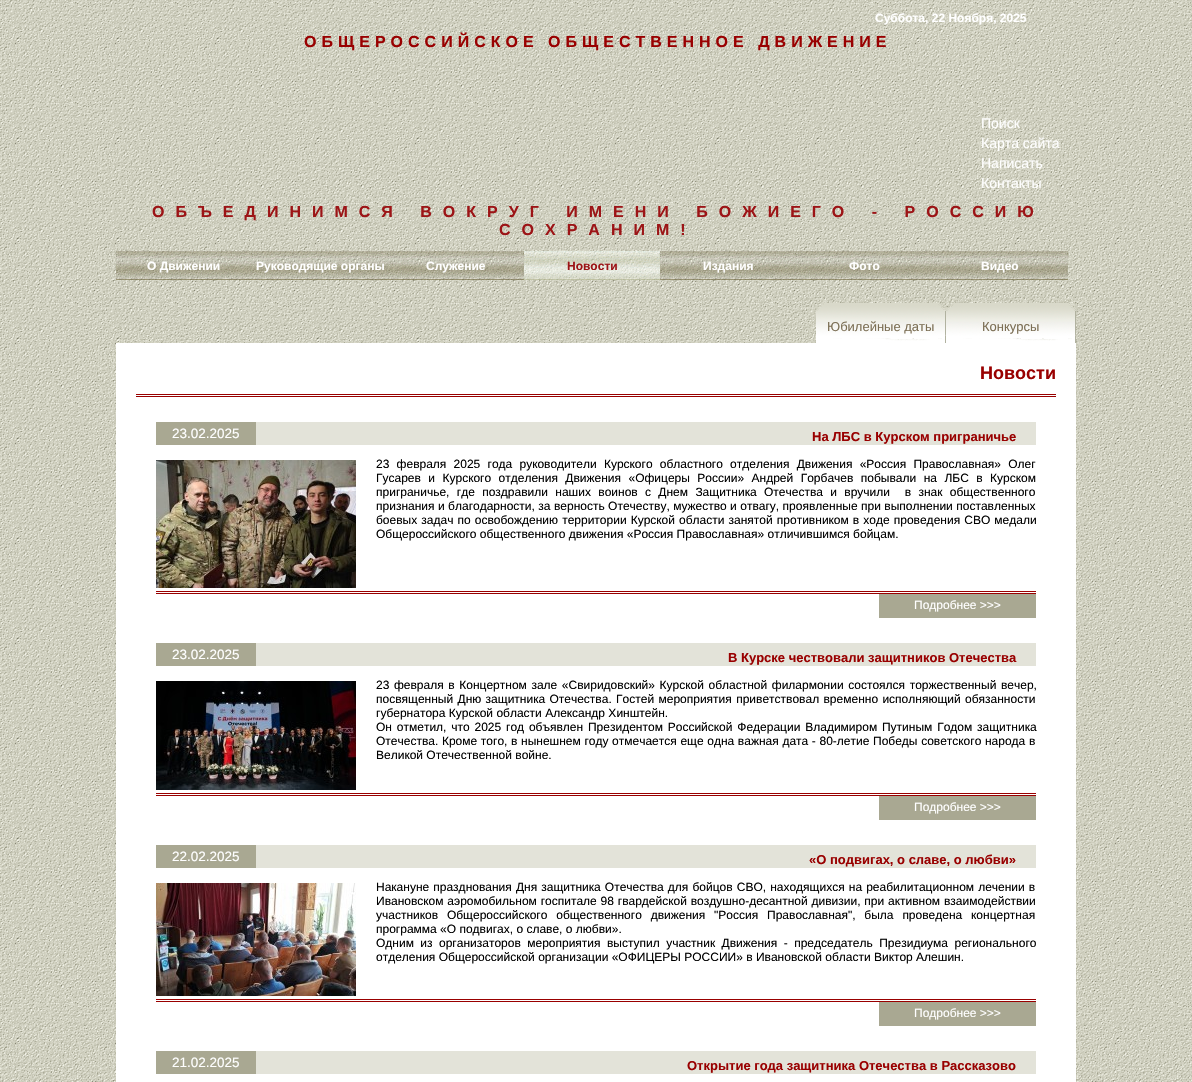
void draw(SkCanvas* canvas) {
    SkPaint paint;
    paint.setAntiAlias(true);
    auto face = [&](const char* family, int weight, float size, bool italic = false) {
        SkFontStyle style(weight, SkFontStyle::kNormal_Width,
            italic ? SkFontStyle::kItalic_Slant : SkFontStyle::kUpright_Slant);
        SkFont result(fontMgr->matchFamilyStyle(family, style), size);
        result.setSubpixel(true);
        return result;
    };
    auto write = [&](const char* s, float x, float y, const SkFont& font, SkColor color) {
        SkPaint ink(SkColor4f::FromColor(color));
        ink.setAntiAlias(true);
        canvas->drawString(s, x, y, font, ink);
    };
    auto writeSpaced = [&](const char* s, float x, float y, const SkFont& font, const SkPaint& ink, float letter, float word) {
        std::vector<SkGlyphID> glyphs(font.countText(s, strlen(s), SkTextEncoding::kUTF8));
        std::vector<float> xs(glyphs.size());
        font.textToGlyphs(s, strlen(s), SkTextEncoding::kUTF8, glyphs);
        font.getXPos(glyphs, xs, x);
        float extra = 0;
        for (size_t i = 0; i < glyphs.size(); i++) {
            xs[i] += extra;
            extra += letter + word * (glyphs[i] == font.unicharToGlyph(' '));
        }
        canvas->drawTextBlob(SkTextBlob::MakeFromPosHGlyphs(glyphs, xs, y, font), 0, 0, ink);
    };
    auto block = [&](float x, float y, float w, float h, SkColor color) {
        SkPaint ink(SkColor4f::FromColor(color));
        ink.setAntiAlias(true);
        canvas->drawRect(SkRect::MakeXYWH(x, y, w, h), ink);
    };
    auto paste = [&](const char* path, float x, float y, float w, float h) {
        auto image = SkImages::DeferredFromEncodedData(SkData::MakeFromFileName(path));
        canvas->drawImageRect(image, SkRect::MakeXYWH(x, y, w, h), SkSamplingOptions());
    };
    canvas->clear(SK_ColorWHITE);
    paste("pic1.png", 0, 0, 1192, 1082);
    auto kFont1 = face("Liberation Sans", 700, 12);
    write("Суббота, 22 Ноября, 2025", 875, 22, kFont1, SK_ColorWHITE);
    auto kFont2 = face("Liberation Sans", 700, 16);
    paint.setColor(SkColorSetRGB(153, 0, 0));
    writeSpaced("ОБЩЕРОССИЙСКОЕ ОБЩЕСТВЕННОЕ ДВИЖЕНИЕ", 304, 47, kFont2, paint, 5, 0);
    auto kFont3 = face("Liberation Sans", 400, 14);
    write("Поиск", 981, 128, kFont3, SK_ColorWHITE);
    write("Карта сайта", 981, 148, kFont3, SK_ColorWHITE);
    write("Написать", 981, 168, kFont3, SK_ColorWHITE);
    write("Контакты", 981, 188, kFont3, SK_ColorWHITE);
    paint.setColor(SkColorSetRGB(156, 20, 22));
    writeSpaced("ОБЪЕДИНИМСЯ ВОКРУГ ИМЕНИ БОЖИЕГО - РОССИЮ", 152, 217, kFont2, paint, 11, 1);
    writeSpaced("СОХРАНИМ!", 499, 235, kFont2, paint, 11, 0);
    paste("pic2.png", 116, 251, 136, 29);
    write("О Движении", 147, 270, kFont1, SK_ColorWHITE);
    paste("pic2.png", 252, 251, 136, 29);
    write("Руководящие органы", 256, 270, kFont1, SK_ColorWHITE);
    paste("pic2.png", 388, 251, 136, 29);
    write("Служение", 426, 270, kFont1, SK_ColorWHITE);
    paste("pic3.png", 524, 251, 136, 29);
    write("Новости", 567, 270, kFont1, SkColorSetRGB(156, 20, 22));
    paste("pic2.png", 660, 251, 136, 29);
    write("Издания", 703, 270, kFont1, SK_ColorWHITE);
    paste("pic2.png", 796, 251, 136, 29);
    write("Фото", 849, 270, kFont1, SK_ColorWHITE);
    paste("pic2.png", 932, 251, 136, 29);
    write("Видео", 981, 270, kFont1, SK_ColorWHITE);
    paste("pic4.png", 816, 303, 130, 40);
    auto kFont4 = face("Liberation Sans", 400, 13);
    write("Юбилейные даты", 827, 331, kFont4, SkColorSetRGB(124, 111, 85));
    paste("pic5.png", 946, 303, 130, 40);
    write("Конкурсы", 982, 331, kFont4, SkColorSetRGB(124, 111, 85));
    block(116, 343, 960, 739, SK_ColorWHITE);
    block(136, 394, 920, 1, SkColorSetRGB(153, 0, 0));
    block(136, 396, 920, 1, SkColorSetRGB(153, 0, 0));
    auto kFont5 = face("Liberation Sans", 700, 18);
    write("Новости", 980, 379, kFont5, SkColorSetRGB(153, 0, 0));
    block(256, 422, 780, 23, SkColorSetRGB(227, 227, 217));
    block(156, 422, 100, 23, SkColorSetRGB(169, 168, 146));
    auto kFont6 = face("Liberation Sans", 400, 13.5f);
    write("23.02.2025", 172, 438, kFont6, SK_ColorWHITE);
    auto kFont7 = face("Liberation Sans", 700, 13);
    write("На ЛБС в Курском приграничье", 812, 441, kFont7, SkColorSetRGB(153, 0, 0));
    paste("pic6.png", 156, 460, 200, 128);
    auto kFont8 = face("Liberation Sans", 400, 12);
    paint.setColor(SK_ColorBLACK);
    writeSpaced("23 февраля 2025 года руководители Курского областного отделения Движения «Россия Православная» Олег", 376, 468, kFont8, paint, 0, 3.9f);
    writeSpaced("Гусарев и Курского отделения Движения «Офицеры России» Андрей Горбачев побывали на ЛБС в Курском", 376, 482, kFont8, paint, 0, 4.1f);
    writeSpaced("приграничье, где поздравили наших воинов с Днем Защитника Отечества и вручили  в знак общественного", 376, 496, kFont8, paint, 0, 4);
    writeSpaced("признания и благодарности, за верность Отечеству, мужество и отвагу, проявленные при выполнении поставленных", 376, 510, kFont8, paint, 0, 0.1f);
    writeSpaced("боевых задач по освобождению территории Курской области занятой противником в ходе проведения СВО медали", 376, 524, kFont8, paint, 0, 0.75f);
    write("Общероссийского общественного движения «Россия Православная» отличившимся бойцам.", 376, 538, kFont8, SK_ColorBLACK);
    block(156, 591, 880, 1, SkColorSetRGB(153, 0, 0));
    block(156, 593, 880, 1, SkColorSetRGB(153, 0, 0));
    block(879, 594, 157, 24, SkColorSetRGB(169, 168, 146));
    write("Подробнее >>>", 914, 609, kFont8, SK_ColorWHITE);
    block(256, 643, 780, 23, SkColorSetRGB(227, 227, 217));
    block(156, 643, 100, 23, SkColorSetRGB(169, 168, 146));
    write("23.02.2025", 172, 659, kFont6, SK_ColorWHITE);
    write("В Курске чествовали защитников Отечества", 728, 662, kFont7, SkColorSetRGB(153, 0, 0));
    paste("pic7.png", 156, 681, 200, 109);
    writeSpaced("23 февраля в Концертном зале «Свиридовский» Курской областной филармонии состоялся торжественный вечер,", 376, 689, kFont8, paint, 0, 1.25f);
    writeSpaced("посвященный Дню защитника Отечества. Гостей мероприятия приветствовал временно исполняющий обязанности", 376, 703, kFont8, paint, 0, 1);
    write("губернатора Курской области Александр Хинштейн.", 376, 717, kFont8, SK_ColorBLACK);
    writeSpaced("Он отметил, что 2025 год объявлен Президентом Российской Федерации Владимиром Путиным Годом защитника", 376, 731, kFont8, paint, 0, 1.5f);
    writeSpaced("Отечества. Кроме того, в нынешнем году отмечается еще одна важная дата - 80-летие Победы советского народа в", 376, 745, kFont8, paint, 0, 0.3f);
    write("Великой Отечественной войне.", 376, 759, kFont8, SK_ColorBLACK);
    block(156, 793, 880, 1, SkColorSetRGB(153, 0, 0));
    block(156, 795, 880, 1, SkColorSetRGB(153, 0, 0));
    block(879, 796, 157, 24, SkColorSetRGB(169, 168, 146));
    write("Подробнее >>>", 914, 811, kFont8, SK_ColorWHITE);
    block(256, 845, 780, 23, SkColorSetRGB(227, 227, 217));
    block(156, 845, 100, 23, SkColorSetRGB(169, 168, 146));
    write("22.02.2025", 172, 861, kFont6, SK_ColorWHITE);
    write("«О подвигах, о славе, о любви»", 809, 864, kFont7, SkColorSetRGB(153, 0, 0));
    paste("pic8.png", 156, 883, 200, 113);
    writeSpaced("Накануне празднования Дня защитника Отечества для бойцов СВО, находящихся на реабилитационном лечении в", 376, 891, kFont8, paint, 0, 0.75f);
    writeSpaced("Ивановском аэромобильном госпитале 98 гвардейской воздушно-десантной дивизии, при активном взаимодействии", 376, 905, kFont8, paint, 0, 0.5f);
    writeSpaced("участников Общероссийского общественного движения \"Россия Православная\", была проведена концертная", 376, 919, kFont8, paint, 0, 5.5f);
    write("программа «О подвигах, о славе, о любви».", 376, 933, kFont8, SK_ColorBLACK);
    writeSpaced("Одним из организаторов мероприятия выступил участник Движения - председатель Президиума регионального", 376, 947, kFont8, paint, 0, 3.1f);
    write("отделения Общероссийской организации «ОФИЦЕРЫ РОССИИ» в Ивановской области Виктор Алешин.", 376, 961, kFont8, SK_ColorBLACK);
    block(156, 999, 880, 1, SkColorSetRGB(153, 0, 0));
    block(156, 1001, 880, 1, SkColorSetRGB(153, 0, 0));
    block(879, 1002, 157, 24, SkColorSetRGB(169, 168, 146));
    write("Подробнее >>>", 914, 1017, kFont8, SK_ColorWHITE);
    block(256, 1051, 780, 23, SkColorSetRGB(227, 227, 217));
    block(156, 1051, 100, 23, SkColorSetRGB(169, 168, 146));
    write("21.02.2025", 172, 1067, kFont6, SK_ColorWHITE);
    write("Открытие года защитника Отечества в Рассказово", 687, 1070, kFont7, SkColorSetRGB(153, 0, 0));
}
